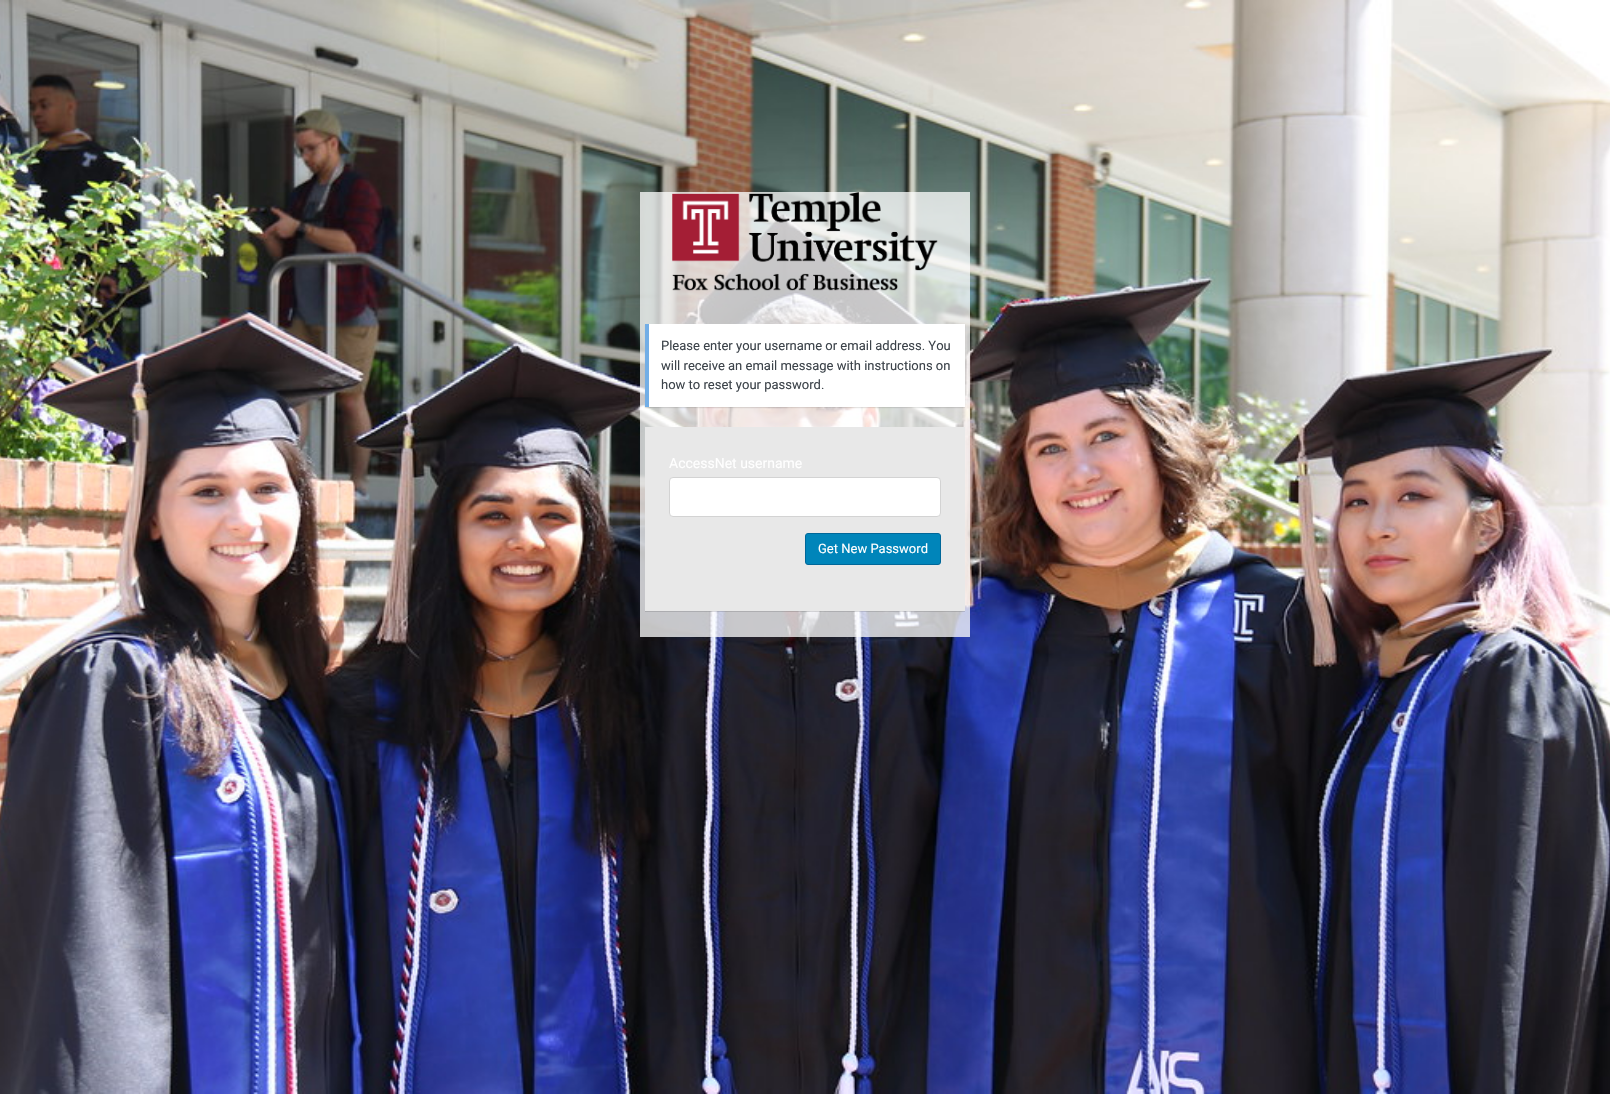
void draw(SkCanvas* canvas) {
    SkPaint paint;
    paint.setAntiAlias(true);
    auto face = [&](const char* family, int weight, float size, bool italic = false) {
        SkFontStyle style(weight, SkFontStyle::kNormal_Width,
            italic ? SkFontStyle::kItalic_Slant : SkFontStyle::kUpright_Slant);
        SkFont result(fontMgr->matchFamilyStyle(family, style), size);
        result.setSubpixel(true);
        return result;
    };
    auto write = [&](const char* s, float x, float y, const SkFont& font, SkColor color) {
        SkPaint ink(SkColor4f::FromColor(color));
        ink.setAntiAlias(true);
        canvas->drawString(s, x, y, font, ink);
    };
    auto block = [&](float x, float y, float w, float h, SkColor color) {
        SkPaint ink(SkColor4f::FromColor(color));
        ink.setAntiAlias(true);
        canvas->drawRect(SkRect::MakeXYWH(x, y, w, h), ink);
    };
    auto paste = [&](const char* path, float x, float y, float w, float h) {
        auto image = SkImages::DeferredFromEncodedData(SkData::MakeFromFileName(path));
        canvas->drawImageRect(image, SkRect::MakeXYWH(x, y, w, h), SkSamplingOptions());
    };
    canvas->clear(SK_ColorWHITE);
    paste("pic1.png", 0, 0, 1610, 1094);
    block(640, 192, 330, 445, SkColorSetARGB(191, 255, 255, 255));
    paste("pic2.png", 672, 192, 266, 99);
    paint.setColor(SkColorSetARGB(26, 0, 0, 0));
    paint.setMaskFilter(SkMaskFilter::MakeBlur(kNormal_SkBlurStyle, 0.5f));
    canvas->drawRect(SkRect::MakeXYWH(645, 325, 320, 83), paint);
    paint.setMaskFilter(nullptr);
    block(649, 324, 316, 83, SK_ColorWHITE);
    block(645, 324, 4, 83, SkColorSetRGB(114, 174, 230));
    auto kFont1 = face("Roboto", 400, 13);
    write("Please enter your username or email address. You", 661, 350, kFont1, SkColorSetRGB(60, 67, 74));
    write("will receive an email message with instructions on", 661, 370, kFont1, SkColorSetRGB(60, 67, 74));
    write("how to reset your password.", 661, 389, kFont1, SkColorSetRGB(60, 67, 74));
    block(645, 611, 320, 1, SkColorSetARGB(33, 0, 0, 0));
    block(645, 427, 320, 184, SkColorSetRGB(232, 232, 232));
    auto kFont2 = face("Roboto", 400, 14);
    write("AccessNet username", 669, 468, kFont2, SK_ColorWHITE);
    paint.setColor(SK_ColorWHITE);
    canvas->drawRoundRect(SkRect::MakeXYWH(669.5f, 477.5f, 271, 39), 3.5f, 3.5f, paint);
    paint.setStyle(SkPaint::kStroke_Style);
    paint.setStrokeWidth(1);
    paint.setColor(SkColorSetRGB(211, 211, 211));
    canvas->drawRoundRect(SkRect::MakeXYWH(669.5f, 477.5f, 271, 39), 3.5f, 3.5f, paint);
    paint.setStyle(SkPaint::kFill_Style);
    paint.setColor(SkColorSetRGB(0, 133, 186));
    canvas->drawRoundRect(SkRect::MakeXYWH(805.5f, 533.5f, 135, 31), 2.5f, 2.5f, paint);
    paint.setStyle(SkPaint::kStroke_Style);
    paint.setColor(SkColorSetRGB(0, 103, 153));
    canvas->drawRoundRect(SkRect::MakeXYWH(805.5f, 533.5f, 135, 31), 2.5f, 2.5f, paint);
    write("Get New Password", 818, 553, kFont1, SK_ColorWHITE);
}
